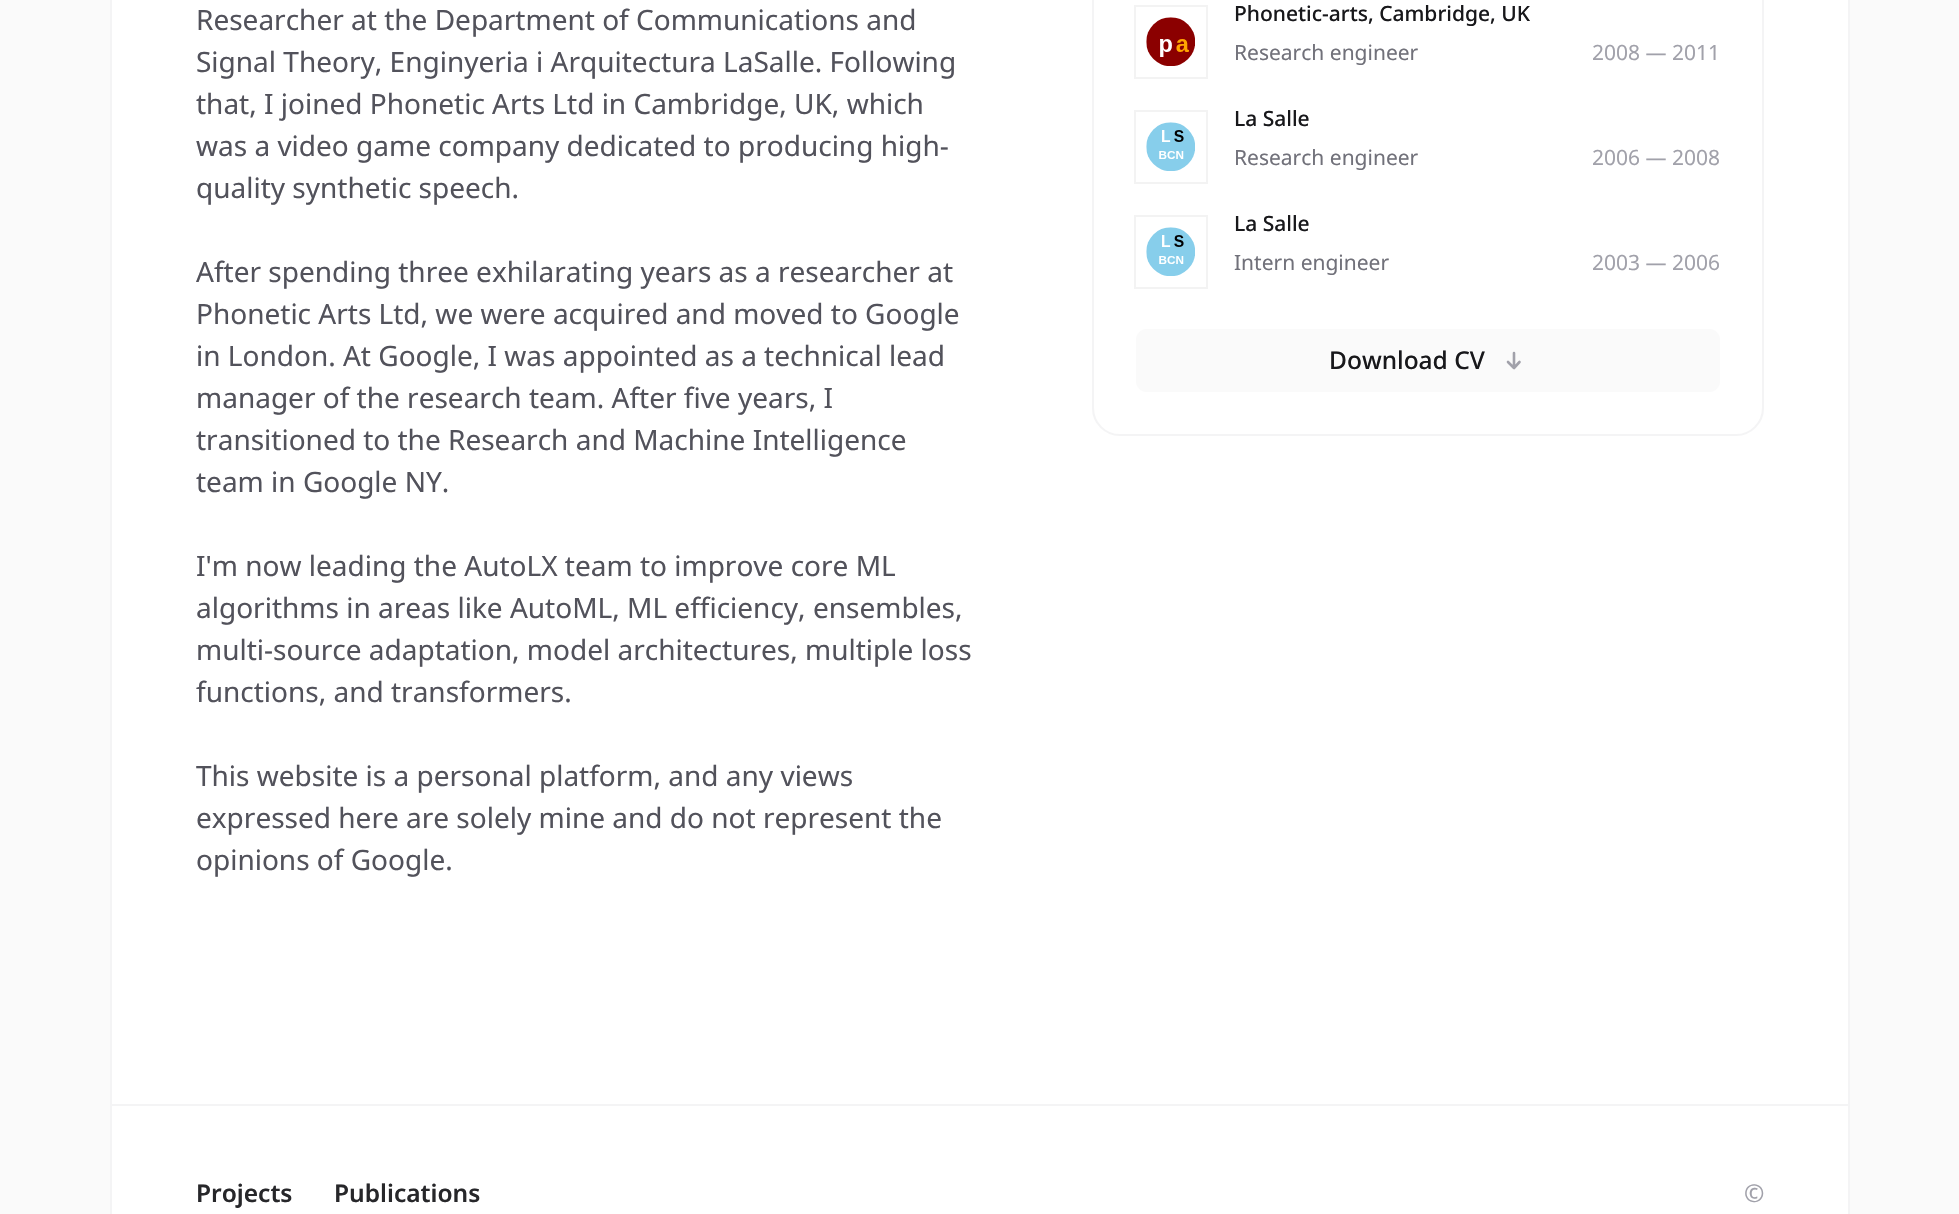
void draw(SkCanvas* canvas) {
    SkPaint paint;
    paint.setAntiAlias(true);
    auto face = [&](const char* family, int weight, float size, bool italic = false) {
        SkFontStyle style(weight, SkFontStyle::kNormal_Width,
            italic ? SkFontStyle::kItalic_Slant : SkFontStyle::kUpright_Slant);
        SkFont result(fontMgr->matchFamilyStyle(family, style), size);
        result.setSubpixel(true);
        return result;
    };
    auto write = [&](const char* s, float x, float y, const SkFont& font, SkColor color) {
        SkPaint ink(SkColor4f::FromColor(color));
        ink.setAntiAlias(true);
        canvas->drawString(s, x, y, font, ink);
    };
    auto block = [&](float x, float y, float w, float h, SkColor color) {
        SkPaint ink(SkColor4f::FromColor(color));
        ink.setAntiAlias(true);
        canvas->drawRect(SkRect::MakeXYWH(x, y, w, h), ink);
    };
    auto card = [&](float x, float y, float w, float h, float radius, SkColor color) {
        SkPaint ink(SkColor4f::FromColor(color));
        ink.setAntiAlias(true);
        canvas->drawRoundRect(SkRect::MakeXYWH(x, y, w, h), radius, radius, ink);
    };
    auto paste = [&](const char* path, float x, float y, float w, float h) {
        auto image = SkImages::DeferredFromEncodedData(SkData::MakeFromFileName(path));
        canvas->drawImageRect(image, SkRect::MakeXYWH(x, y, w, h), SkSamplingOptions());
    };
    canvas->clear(SkColorSetRGB(250, 250, 250));
    paint.setStyle(SkPaint::kStroke_Style);
    paint.setStrokeWidth(2);
    paint.setColor(SkColorSetRGB(244, 244, 245));
    canvas->drawRect(SkRect::MakeXYWH(111, -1, 1738, 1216), paint);
    block(112, 0, 1736, 1214, SK_ColorWHITE);
    auto kFont1 = face("Noto Sans", 400, 28);
    write("Researcher at the Department of Communications and", 196, 30, kFont1, SkColorSetRGB(82, 82, 91));
    write("Signal Theory, Enginyeria i Arquitectura LaSalle. Following", 196, 72, kFont1, SkColorSetRGB(82, 82, 91));
    write("that, I joined Phonetic Arts Ltd in Cambridge, UK, which", 196, 114, kFont1, SkColorSetRGB(82, 82, 91));
    write("was a video game company dedicated to producing high-", 196, 156, kFont1, SkColorSetRGB(82, 82, 91));
    write("quality synthetic speech.", 196, 198, kFont1, SkColorSetRGB(82, 82, 91));
    write("After spending three exhilarating years as a researcher at", 196, 282, kFont1, SkColorSetRGB(82, 82, 91));
    write("Phonetic Arts Ltd, we were acquired and moved to Google", 196, 324, kFont1, SkColorSetRGB(82, 82, 91));
    write("in London. At Google, I was appointed as a technical lead", 196, 366, kFont1, SkColorSetRGB(82, 82, 91));
    write("manager of the research team. After five years, I", 196, 408, kFont1, SkColorSetRGB(82, 82, 91));
    write("transitioned to the Research and Machine Intelligence", 196, 450, kFont1, SkColorSetRGB(82, 82, 91));
    write("team in Google NY.", 196, 492, kFont1, SkColorSetRGB(82, 82, 91));
    write("I'm now leading the AutoLX team to improve core ML", 196, 576, kFont1, SkColorSetRGB(82, 82, 91));
    write("algorithms in areas like AutoML, ML efficiency, ensembles,", 196, 618, kFont1, SkColorSetRGB(82, 82, 91));
    write("multi-source adaptation, model architectures, multiple loss", 196, 660, kFont1, SkColorSetRGB(82, 82, 91));
    write("functions, and transformers.", 196, 702, kFont1, SkColorSetRGB(82, 82, 91));
    write("This website is a personal platform, and any views", 196, 786, kFont1, SkColorSetRGB(82, 82, 91));
    write("expressed here are solely mine and do not represent the", 196, 828, kFont1, SkColorSetRGB(82, 82, 91));
    write("opinions of Google.", 196, 870, kFont1, SkColorSetRGB(82, 82, 91));
    canvas->drawRoundRect(SkRect::MakeXYWH(1093, -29, 670, 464), 27, 27, paint);
    paint.setColor(SkColorSetARGB(13, 24, 24, 27));
    canvas->drawRect(SkRect::MakeXYWH(1135, 6, 72, 72), paint);
    paste("pic1.png", 1146, 17, 49, 49);
    auto kFont2 = face("Noto Sans", 500, 21);
    write("Phonetic-arts, Cambridge, UK", 1234, 21, kFont2, SkColorSetRGB(24, 24, 27));
    auto kFont3 = face("Noto Sans", 400, 21);
    write("Research engineer", 1234, 60, kFont3, SkColorSetRGB(113, 113, 122));
    write("2008 — 2011", 1592, 60, kFont3, SkColorSetRGB(161, 161, 170));
    canvas->drawRect(SkRect::MakeXYWH(1135, 111, 72, 72), paint);
    paste("pic2.png", 1146, 122, 49, 49);
    write("La Salle", 1234, 126, kFont2, SkColorSetRGB(24, 24, 27));
    write("Research engineer", 1234, 165, kFont3, SkColorSetRGB(113, 113, 122));
    write("2006 — 2008", 1592, 165, kFont3, SkColorSetRGB(161, 161, 170));
    canvas->drawRect(SkRect::MakeXYWH(1135, 216, 72, 72), paint);
    paste("pic3.png", 1146, 227, 49, 49);
    write("La Salle", 1234, 231, kFont2, SkColorSetRGB(24, 24, 27));
    write("Intern engineer", 1234, 270, kFont3, SkColorSetRGB(113, 113, 122));
    write("2003 — 2006", 1592, 270, kFont3, SkColorSetRGB(161, 161, 170));
    card(1136, 329, 584, 63, 11, SkColorSetRGB(250, 250, 250));
    auto kFont4 = face("Noto Sans", 500, 24.5f);
    write("Download CV", 1329, 369, kFont4, SkColorSetRGB(24, 24, 27));
    paint.setStrokeWidth(2.6f);
    paint.setStrokeCap(SkPaint::kRound_Cap);
    paint.setStrokeJoin(SkPaint::kRound_Join);
    paint.setColor(SkColorSetRGB(161, 161, 170));
    canvas->drawPath(SkPathBuilder().moveTo(1508, 362).lineTo(1514, 368).moveTo(1514, 368).lineTo(1519.5f, 362).moveTo(1514, 368).lineTo(1514, 353).detach(), paint);
    block(112, 1104, 1736, 2, SkColorSetRGB(244, 244, 245));
    auto kFont5 = face("Noto Sans", 600, 24.5f);
    write("Projects", 196, 1202, kFont5, SkColorSetRGB(39, 39, 42));
    write("Publications", 334, 1202, kFont5, SkColorSetRGB(39, 39, 42));
    auto kFont6 = face("Noto Sans", 400, 24.5f);
    write("©", 1744, 1202, kFont6, SkColorSetRGB(161, 161, 170));
}
